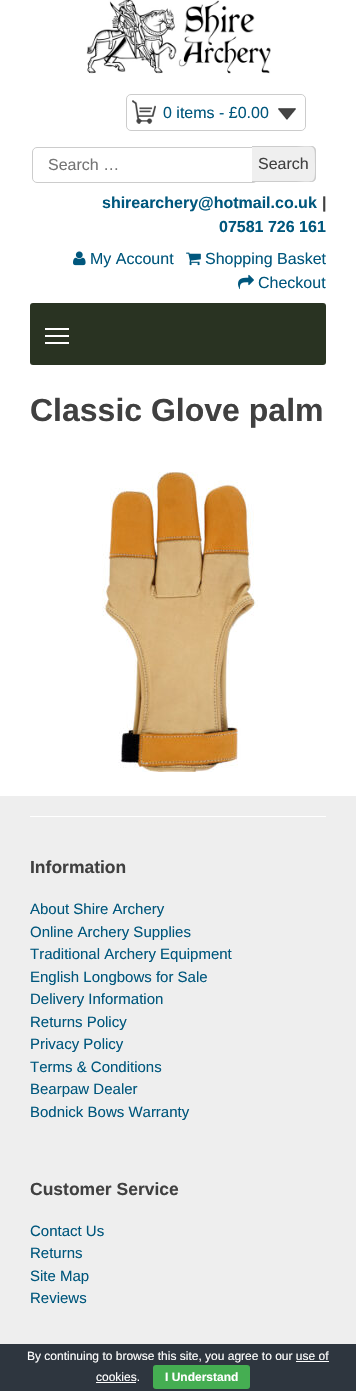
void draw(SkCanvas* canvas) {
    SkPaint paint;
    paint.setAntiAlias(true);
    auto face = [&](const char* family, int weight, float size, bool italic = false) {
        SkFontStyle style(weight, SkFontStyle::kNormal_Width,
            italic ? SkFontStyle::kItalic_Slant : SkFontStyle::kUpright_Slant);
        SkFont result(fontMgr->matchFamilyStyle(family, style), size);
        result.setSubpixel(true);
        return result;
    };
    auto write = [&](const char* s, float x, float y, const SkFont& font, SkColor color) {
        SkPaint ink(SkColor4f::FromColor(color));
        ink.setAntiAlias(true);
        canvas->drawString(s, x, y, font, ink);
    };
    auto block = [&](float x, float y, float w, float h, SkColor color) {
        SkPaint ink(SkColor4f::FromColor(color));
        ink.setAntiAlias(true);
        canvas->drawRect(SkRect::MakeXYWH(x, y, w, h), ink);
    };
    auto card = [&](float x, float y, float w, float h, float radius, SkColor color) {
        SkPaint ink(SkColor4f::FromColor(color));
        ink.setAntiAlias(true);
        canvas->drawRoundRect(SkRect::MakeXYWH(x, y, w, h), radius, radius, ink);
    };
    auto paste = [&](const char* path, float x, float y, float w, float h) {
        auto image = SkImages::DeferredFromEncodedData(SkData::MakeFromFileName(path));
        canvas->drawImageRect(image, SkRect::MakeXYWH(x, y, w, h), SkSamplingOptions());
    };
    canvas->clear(SK_ColorWHITE);
    paste("pic1.png", 86, 0, 185, 74);
    paste("pic2.png", 132, 100, 24, 24);
    paint.setStyle(SkPaint::kStroke_Style);
    paint.setStrokeWidth(1);
    paint.setColor(SkColorSetRGB(204, 204, 204));
    canvas->drawRoundRect(SkRect::MakeXYWH(126.5f, 94.5f, 179, 36), 4.5f, 4.5f, paint);
    card(163, 95, 142, 35, 5, SK_ColorWHITE);
    paste("pic3.png", 278, 108, 18, 12);
    auto kFont1 = face("Liberation Sans", 400, 16);
    write("0 items - £0.00", 163, 118, kFont1, SkColorSetRGB(0, 87, 125));
    canvas->drawRoundRect(SkRect::MakeXYWH(32.5f, 147.5f, 225, 35), 4.5f, 4.5f, paint);
    write("Search …", 48, 170, kFont1, SkColorSetRGB(117, 117, 117));
    paint.setStyle(SkPaint::kFill_Style);
    paint.setColor(SkColorSetRGB(239, 239, 239));
    canvas->drawPath(SkPathBuilder().moveTo(252, 146).lineTo(311, 146).cubicTo(314, 146, 316, 148, 316, 151).lineTo(316, 177).cubicTo(316, 180, 314, 182, 311, 182).lineTo(252, 182).close().detach(), paint);
    paint.setColor(SkColorSetRGB(204, 204, 204));
    canvas->drawPath(SkPathBuilder(SkPathFillType::kEvenOdd).moveTo(252, 146).lineTo(311, 146).cubicTo(314, 146, 316, 148, 316, 151).lineTo(316, 177).cubicTo(316, 180, 314, 182, 311, 182).lineTo(252, 182).close().moveTo(252, 147).lineTo(291, 147).cubicTo(316, 147, 315, 142, 315, 164).cubicTo(315, 186, 316, 181, 291, 181).lineTo(252, 181).close().detach(), paint);
    write("Search", 258, 169, kFont1, SkColorSetRGB(64, 64, 64));
    auto kFont2 = face("Liberation Sans", 700, 16);
    write("shirearchery@hotmail.co.uk", 102, 208, kFont2, SkColorSetRGB(0, 87, 125));
    write("|", 322, 208, kFont2, SkColorSetRGB(64, 64, 64));
    write("07581 726 161", 219, 232, kFont2, SkColorSetRGB(0, 87, 125));
    paste("pic4.png", 73, 251, 13, 15);
    write("My Account", 90, 264, kFont1, SkColorSetRGB(0, 87, 125));
    paste("pic5.png", 186, 252, 15, 14);
    write("Shopping Basket", 205, 264, kFont1, SkColorSetRGB(0, 87, 125));
    paste("pic6.png", 238, 274, 16, 16);
    write("Checkout", 258, 288, kFont1, SkColorSetRGB(0, 87, 125));
    card(30, 303, 296, 62, 3, SkColorSetRGB(41, 51, 34));
    block(45, 335, 24, 2, SK_ColorWHITE);
    block(45, 328, 24, 2, SK_ColorWHITE);
    block(45, 342, 24, 2, SK_ColorWHITE);
    auto kFont3 = face("Liberation Sans", 700, 32);
    write("Classic Glove palm", 30, 421, kFont3, SkColorSetRGB(64, 64, 64));
    paste("pic7.png", 102, 472, 156, 300);
    block(0, 796, 356, 548, SkColorSetRGB(238, 238, 238));
    block(30, 816, 296, 1, SK_ColorWHITE);
    auto kFont4 = face("Liberation Sans", 700, 17.5f);
    write("Information", 30, 873, kFont4, SkColorSetRGB(64, 64, 64));
    auto kFont5 = face("Liberation Sans", 400, 15);
    write("About Shire Archery", 30, 914, kFont5, SkColorSetRGB(0, 87, 125));
    write("Online Archery Supplies", 30, 937, kFont5, SkColorSetRGB(0, 87, 125));
    write("Traditional Archery Equipment", 30, 959, kFont5, SkColorSetRGB(0, 87, 125));
    write("English Longbows for Sale", 30, 982, kFont5, SkColorSetRGB(0, 87, 125));
    write("Delivery Information", 30, 1004, kFont5, SkColorSetRGB(0, 87, 125));
    write("Returns Policy", 30, 1027, kFont5, SkColorSetRGB(0, 87, 125));
    write("Privacy Policy", 30, 1049, kFont5, SkColorSetRGB(0, 87, 125));
    write("Terms & Conditions", 30, 1072, kFont5, SkColorSetRGB(0, 87, 125));
    write("Bearpaw Dealer", 30, 1094, kFont5, SkColorSetRGB(0, 87, 125));
    write("Bodnick Bows Warranty", 30, 1117, kFont5, SkColorSetRGB(0, 87, 125));
    write("Customer Service", 30, 1195, kFont4, SkColorSetRGB(64, 64, 64));
    write("Contact Us", 30, 1236, kFont5, SkColorSetRGB(0, 87, 125));
    write("Returns", 30, 1258, kFont5, SkColorSetRGB(0, 87, 125));
    write("Site Map", 30, 1281, kFont5, SkColorSetRGB(0, 87, 125));
    write("Reviews", 30, 1303, kFont5, SkColorSetRGB(0, 87, 125));
    block(0, 1344, 356, 47, SkColorSetRGB(46, 54, 63));
    auto kFont6 = face("Liberation Sans", 400, 12);
    write("By continuing to browse this site, you agree to our use of", 27, 1360, kFont6, SK_ColorWHITE);
    write("cookies.", 96, 1381, kFont6, SK_ColorWHITE);
    block(296, 1361, 33, 1, SK_ColorWHITE);
    block(96, 1382, 40, 1, SK_ColorWHITE);
    card(153, 1365, 97, 24, 3, SkColorSetRGB(69, 174, 82));
    auto kFont7 = face("Liberation Sans", 700, 12);
    write("I Understand", 165, 1381, kFont7, SK_ColorWHITE);
}
